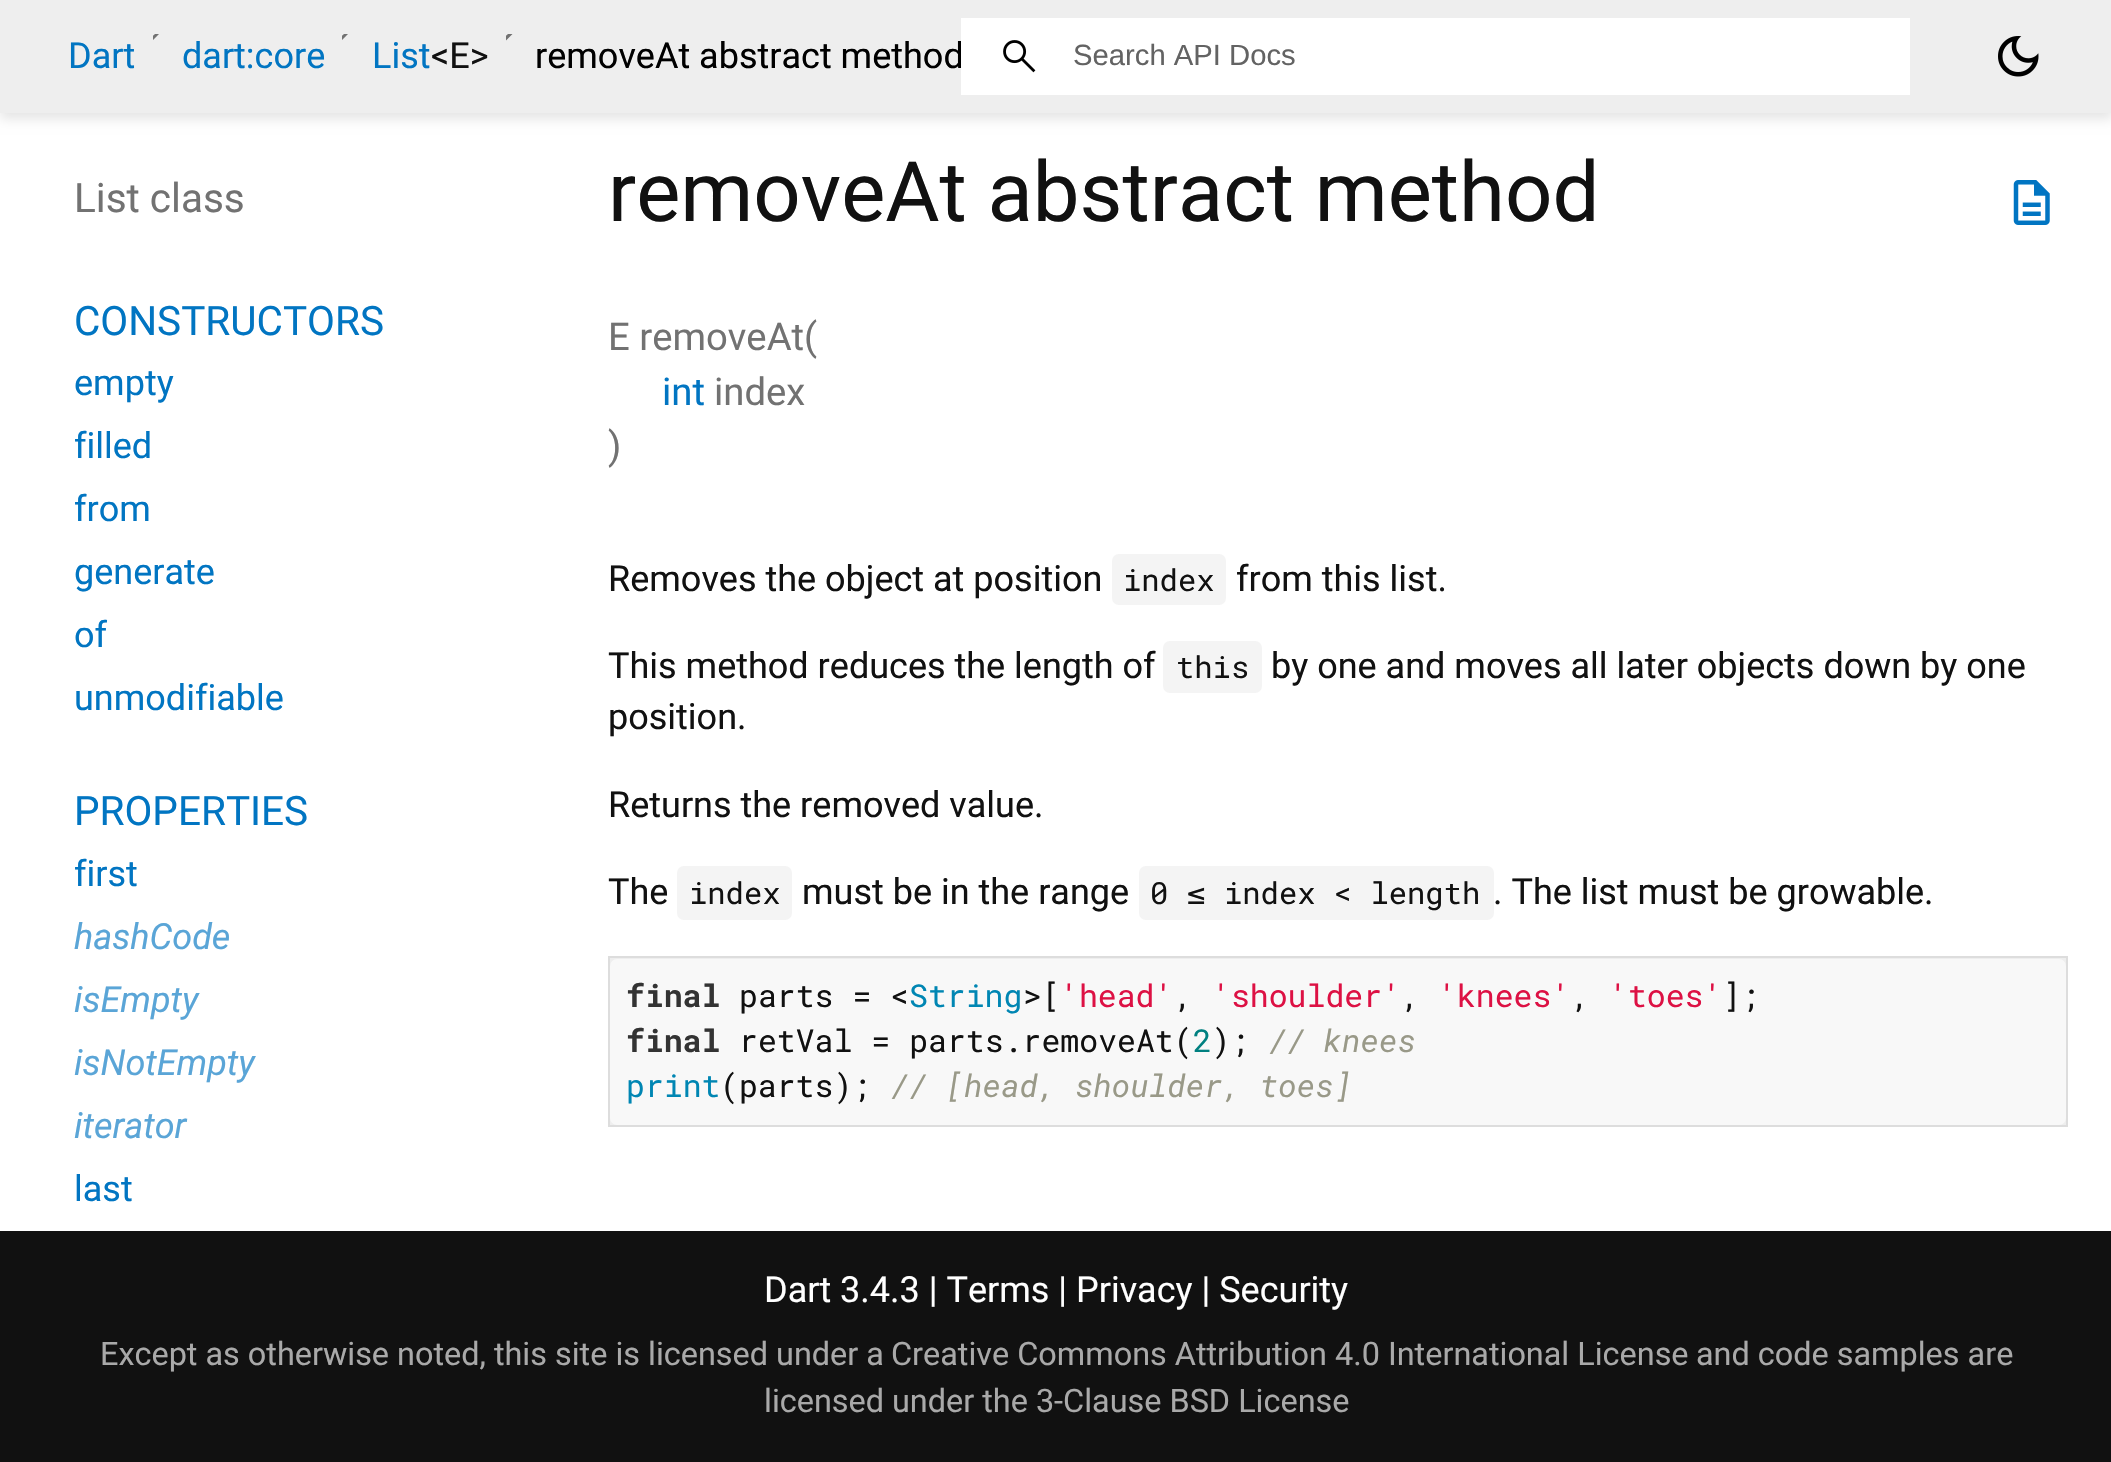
void draw(SkCanvas* canvas) {
    SkPaint paint;
    paint.setAntiAlias(true);
    auto face = [&](const char* family, int weight, float size, bool italic = false) {
        SkFontStyle style(weight, SkFontStyle::kNormal_Width,
            italic ? SkFontStyle::kItalic_Slant : SkFontStyle::kUpright_Slant);
        SkFont result(fontMgr->matchFamilyStyle(family, style), size);
        result.setSubpixel(true);
        return result;
    };
    auto write = [&](const char* s, float x, float y, const SkFont& font, SkColor color) {
        SkPaint ink(SkColor4f::FromColor(color));
        ink.setAntiAlias(true);
        canvas->drawString(s, x, y, font, ink);
    };
    auto block = [&](float x, float y, float w, float h, SkColor color) {
        SkPaint ink(SkColor4f::FromColor(color));
        ink.setAntiAlias(true);
        canvas->drawRect(SkRect::MakeXYWH(x, y, w, h), ink);
    };
    auto card = [&](float x, float y, float w, float h, float radius, SkColor color) {
        SkPaint ink(SkColor4f::FromColor(color));
        ink.setAntiAlias(true);
        canvas->drawRoundRect(SkRect::MakeXYWH(x, y, w, h), radius, radius, ink);
    };
    auto paste = [&](const char* path, float x, float y, float w, float h) {
        auto image = SkImages::DeferredFromEncodedData(SkData::MakeFromFileName(path));
        canvas->drawImageRect(image, SkRect::MakeXYWH(x, y, w, h), SkSamplingOptions());
    };
    canvas->clear(SK_ColorWHITE);
    paint.setColor(SkColorSetARGB(26, 0, 0, 0));
    paint.setMaskFilter(SkMaskFilter::MakeBlur(kNormal_SkBlurStyle, 5.5f));
    canvas->drawRect(SkRect::MakeXYWH(0, 7, 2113, 112), paint);
    paint.setMaskFilter(nullptr);
    block(0, 0, 2111, 113, SkColorSetRGB(238, 238, 238));
    auto kFont1 = face("Roboto", 400, 36);
    write("Dart", 68, 68, kFont1, SkColorSetRGB(1, 117, 194));
    canvas->save();
    canvas->clipRect(SkRect::MakeXYWH(153, 34, 16, 18));
    paint.setColor(SkColorSetRGB(114, 114, 114));
    canvas->drawPath(SkPathBuilder().moveTo(150, 25).lineTo(148, 27).lineTo(155, 34).lineTo(148, 40.5f).lineTo(150, 43).lineTo(159, 34).close().detach(), paint);
    canvas->restore();
    write("dart:core", 182, 68, kFont1, SkColorSetRGB(1, 117, 194));
    canvas->save();
    canvas->clipRect(SkRect::MakeXYWH(342, 34, 16, 18));
    canvas->drawPath(SkPathBuilder().moveTo(339, 25).lineTo(337, 27).lineTo(344, 34).lineTo(337, 40.5f).lineTo(339, 43).lineTo(348, 34).close().detach(), paint);
    canvas->restore();
    write("List", 372, 68, kFont1, SkColorSetRGB(1, 117, 194));
    write("<E>", 431, 68, kFont1, SkColorSetRGB(17, 17, 17));
    canvas->save();
    canvas->clipRect(SkRect::MakeXYWH(506, 34, 16, 18));
    canvas->drawPath(SkPathBuilder().moveTo(503.5f, 25).lineTo(501, 27).lineTo(508, 34).lineTo(501, 40.5f).lineTo(503.5f, 43).lineTo(512.5f, 34).close().detach(), paint);
    canvas->restore();
    write("removeAt abstract method", 535, 68, kFont1, SK_ColorBLACK);
    block(961, 18, 949, 77, SK_ColorWHITE);
    paste("pic1.png", 1003, 40, 33, 33);
    auto kFont2 = face("Liberation Sans", 400, 29.25f);
    write("Search API Docs", 1073, 65, kFont2, SkColorSetRGB(99, 99, 99));
    paste("pic2.png", 1998, 36, 41, 41);
    auto kFont3 = face("Roboto", 400, 40.5f);
    write("List class", 74, 212, kFont3, SkColorSetRGB(114, 114, 114));
    write("CONSTRUCTORS", 74, 335, kFont3, SkColorSetRGB(1, 117, 194));
    write("empty", 74, 395, kFont1, SkColorSetRGB(1, 117, 194));
    write("filled", 74, 458, kFont1, SkColorSetRGB(1, 117, 194));
    write("from", 74, 521, kFont1, SkColorSetRGB(1, 117, 194));
    write("generate", 74, 584, kFont1, SkColorSetRGB(1, 117, 194));
    write("of", 74, 647, kFont1, SkColorSetRGB(1, 117, 194));
    write("unmodifiable", 74, 710, kFont1, SkColorSetRGB(1, 117, 194));
    write("PROPERTIES", 74, 825, kFont3, SkColorSetRGB(1, 117, 194));
    write("first", 74, 886, kFont1, SkColorSetRGB(1, 117, 194));
    auto kFont4 = face("Roboto", 400, 36, true);
    write("hashCode", 74, 949, kFont4, SkColorSetRGB(90, 165, 215));
    write("isEmpty", 74, 1012, kFont4, SkColorSetRGB(90, 165, 215));
    write("isNotEmpty", 74, 1075, kFont4, SkColorSetRGB(90, 165, 215));
    write("iterator", 74, 1138, kFont4, SkColorSetRGB(90, 165, 215));
    write("last", 74, 1201, kFont1, SkColorSetRGB(1, 117, 194));
    auto kFont5 = face("Roboto", 400, 83.25f);
    write("removeAt abstract method", 608, 221, kFont5, SkColorSetRGB(17, 17, 17));
    paste("pic3.png", 2013, 180, 37, 45);
    auto kFont6 = face("Roboto", 400, 38.25f);
    write("E removeAt(", 608, 350, kFont6, SkColorSetRGB(114, 114, 114));
    write("int", 662, 405, kFont6, SkColorSetRGB(1, 117, 194));
    write("index", 714, 405, kFont6, SkColorSetRGB(114, 114, 114));
    write(")", 608, 459, kFont6, SkColorSetRGB(114, 114, 114));
    write("Removes the object at position", 608, 591, kFont1, SkColorSetRGB(17, 17, 17));
    card(1112, 554, 114, 51, 7, SkColorSetRGB(244, 244, 244));
    auto kFont7 = face("Roboto Mono", 400, 30.5f);
    write("index", 1123, 591, kFont7, SkColorSetRGB(17, 17, 17));
    write("from this list.", 1236, 591, kFont1, SkColorSetRGB(17, 17, 17));
    write("This method reduces the length of", 608, 678, kFont1, SkColorSetRGB(17, 17, 17));
    card(1163, 641, 99, 52, 7, SkColorSetRGB(244, 244, 244));
    write("this", 1176, 678, kFont7, SkColorSetRGB(17, 17, 17));
    write("by one and moves all later objects down by one", 1271, 678, kFont1, SkColorSetRGB(17, 17, 17));
    write("position.", 608, 729, kFont1, SkColorSetRGB(17, 17, 17));
    write("Returns the removed value.", 608, 817, kFont1, SkColorSetRGB(17, 17, 17));
    write("The", 608, 904, kFont1, SkColorSetRGB(17, 17, 17));
    card(677, 866, 115, 54, 7, SkColorSetRGB(244, 244, 244));
    write("index", 689, 904, kFont7, SkColorSetRGB(17, 17, 17));
    write("must be in the range", 802, 904, kFont1, SkColorSetRGB(17, 17, 17));
    card(1139, 866, 355, 54, 7, SkColorSetRGB(244, 244, 244));
    write("0", 1150, 904, kFont7, SkColorSetRGB(17, 17, 17));
    auto kFont8 = face("DejaVu Sans Mono", 400, 30.5f);
    write("≤", 1187, 904, kFont8, SkColorSetRGB(17, 17, 17));
    write("index < length", 1224, 904, kFont7, SkColorSetRGB(17, 17, 17));
    write(". The list must be growable.", 1493, 904, kFont1, SkColorSetRGB(17, 17, 17));
    paint.setColor(SkColorSetRGB(238, 238, 238));
    canvas->drawRect(SkRect::MakeXYWH(609, 957, 1458, 169), paint);
    paint.setStyle(SkPaint::kStroke_Style);
    paint.setStrokeWidth(2);
    paint.setColor(SkColorSetRGB(221, 221, 221));
    canvas->drawRect(SkRect::MakeXYWH(609, 957, 1458, 169), paint);
    card(610, 959, 1456, 166, 7, SkColorSetRGB(248, 248, 248));
    auto kFont9 = face("Roboto Mono", 700, 31.5f);
    write("final", 626, 1007, kFont9, SkColorSetRGB(51, 51, 51));
    auto kFont10 = face("Roboto Mono", 400, 31.5f);
    write("parts = <", 739, 1007, kFont10, SkColorSetRGB(17, 17, 17));
    write("String", 909, 1007, kFont10, SkColorSetRGB(0, 134, 179));
    write(">[", 1023, 1007, kFont10, SkColorSetRGB(17, 17, 17));
    write("'head'", 1060, 1007, kFont10, SkColorSetRGB(221, 17, 68));
    write(",", 1174, 1007, kFont10, SkColorSetRGB(17, 17, 17));
    write("'shoulder'", 1212, 1007, kFont10, SkColorSetRGB(221, 17, 68));
    write(",", 1401, 1007, kFont10, SkColorSetRGB(17, 17, 17));
    write("'knees'", 1438, 1007, kFont10, SkColorSetRGB(221, 17, 68));
    write(",", 1571, 1007, kFont10, SkColorSetRGB(17, 17, 17));
    write("'toes'", 1609, 1007, kFont10, SkColorSetRGB(221, 17, 68));
    write("];", 1722, 1007, kFont10, SkColorSetRGB(17, 17, 17));
    write("final", 626, 1052, kFont9, SkColorSetRGB(51, 51, 51));
    write("retVal = parts.removeAt( );", 739, 1052, kFont10, SkColorSetRGB(17, 17, 17));
    auto kFont11 = face("Roboto Mono", 400, 31.5f, true);
    write("// knees", 1268, 1052, kFont11, SkColorSetRGB(153, 153, 136));
    write("2", 1193, 1052, kFont10, SkColorSetRGB(0, 128, 128));
    write("print", 626, 1097, kFont10, SkColorSetRGB(0, 134, 179));
    write("(parts);", 720, 1097, kFont10, SkColorSetRGB(17, 17, 17));
    write("// [head, shoulder, toes]", 890, 1097, kFont11, SkColorSetRGB(153, 153, 136));
    block(0, 1231, 2111, 231, SkColorSetRGB(17, 17, 17));
    write("Dart 3.4.3 | Terms | Privacy | Security", 764, 1302, kFont1, SK_ColorWHITE);
    auto kFont12 = face("Roboto", 400, 32.4f);
    write("Except as otherwise noted, this site is licensed under a", 100, 1365, kFont12, SkColorSetRGB(169, 169, 169));
    write("Creative Commons Attribution 4.0 International License", 891, 1365, kFont12, SkColorSetRGB(169, 169, 169));
    write("and code samples are", 1696, 1365, kFont12, SkColorSetRGB(169, 169, 169));
    write("licensed under the 3-Clause BSD License", 764, 1412, kFont12, SkColorSetRGB(169, 169, 169));
}
